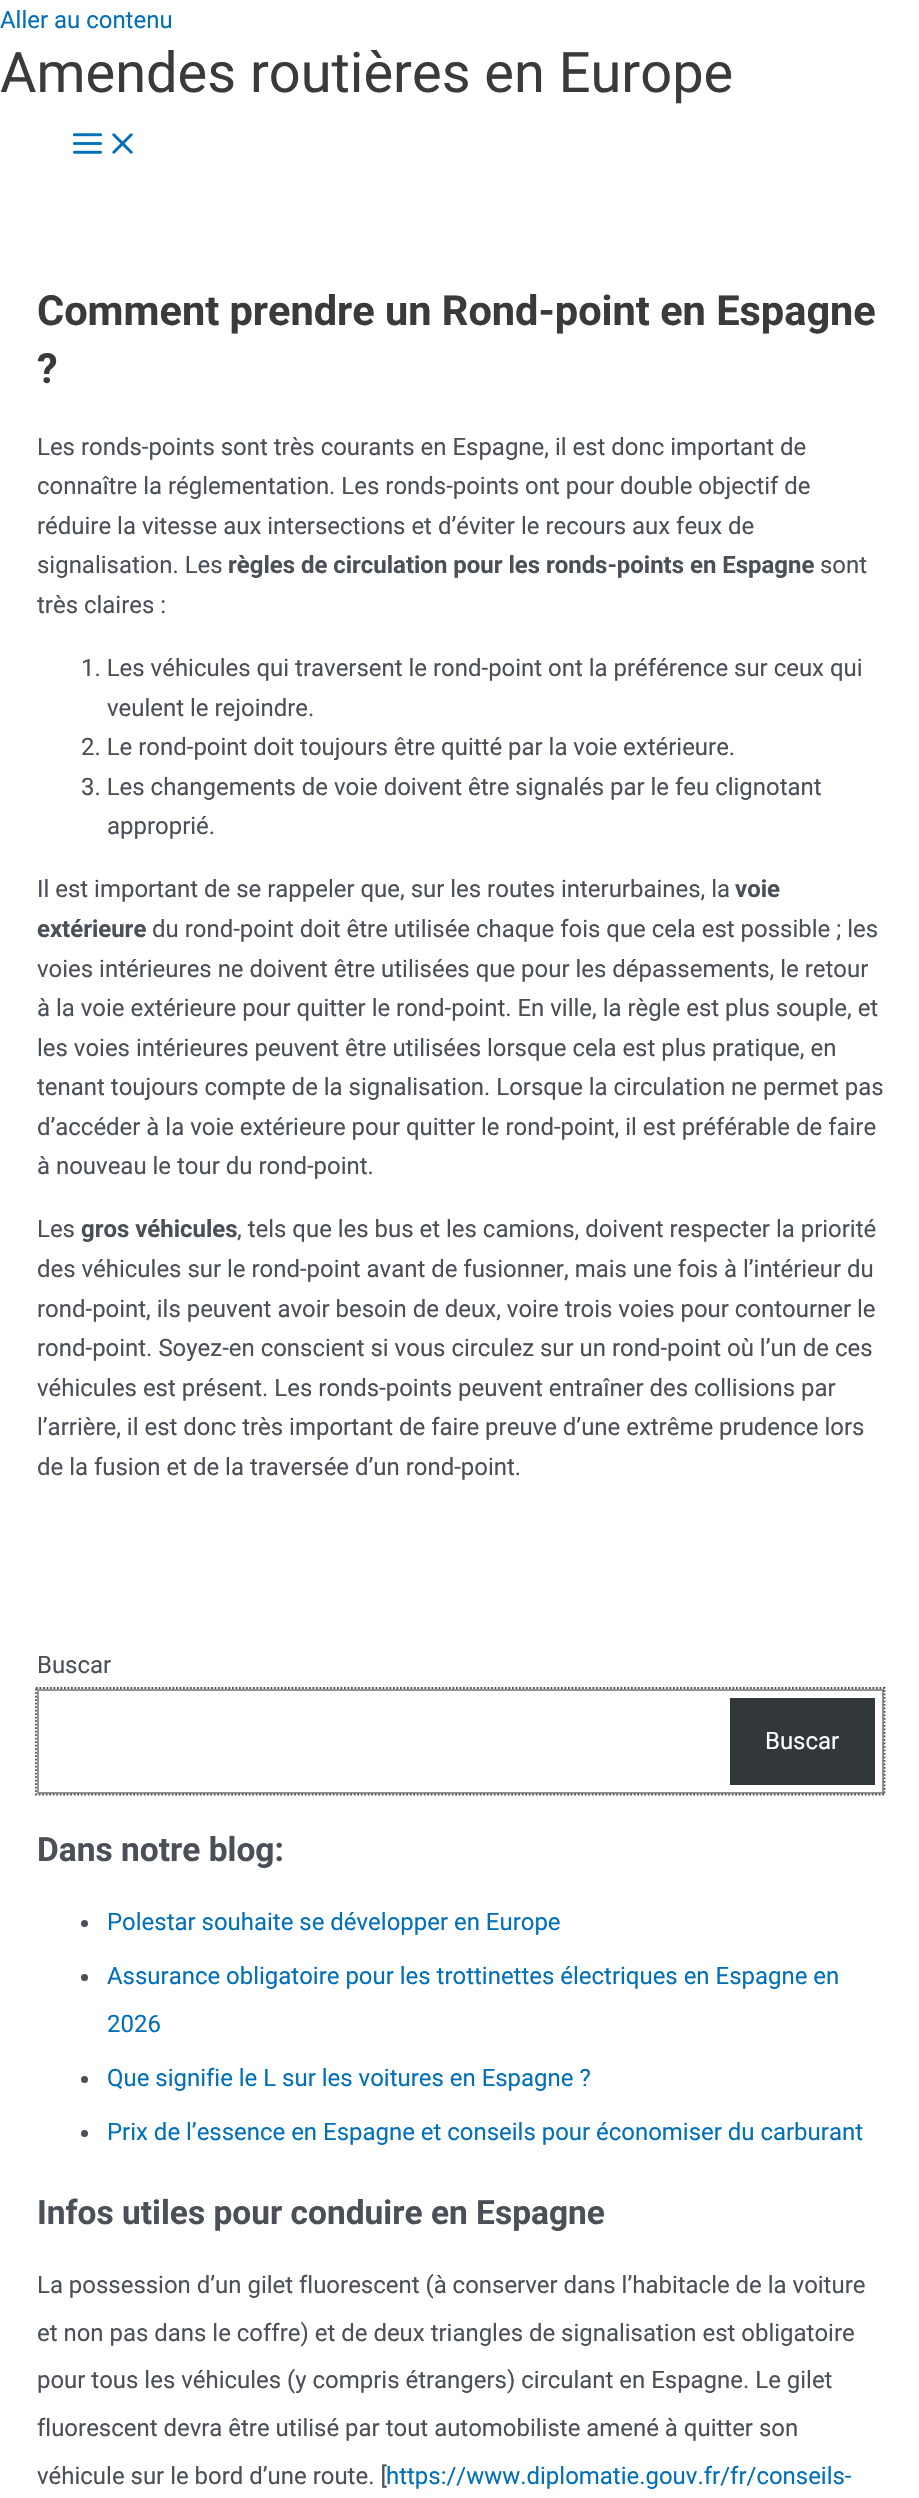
void draw(SkCanvas* canvas) {
    SkPaint paint;
    paint.setAntiAlias(true);
    auto face = [&](const char* family, int weight, float size, bool italic = false) {
        SkFontStyle style(weight, SkFontStyle::kNormal_Width,
            italic ? SkFontStyle::kItalic_Slant : SkFontStyle::kUpright_Slant);
        SkFont result(fontMgr->matchFamilyStyle(family, style), size);
        result.setSubpixel(true);
        return result;
    };
    auto write = [&](const char* s, float x, float y, const SkFont& font, SkColor color) {
        SkPaint ink(SkColor4f::FromColor(color));
        ink.setAntiAlias(true);
        canvas->drawString(s, x, y, font, ink);
    };
    auto block = [&](float x, float y, float w, float h, SkColor color) {
        SkPaint ink(SkColor4f::FromColor(color));
        ink.setAntiAlias(true);
        canvas->drawRect(SkRect::MakeXYWH(x, y, w, h), ink);
    };
    auto paste = [&](const char* path, float x, float y, float w, float h) {
        auto image = SkImages::DeferredFromEncodedData(SkData::MakeFromFileName(path));
        canvas->drawImageRect(image, SkRect::MakeXYWH(x, y, w, h), SkSamplingOptions());
    };
    canvas->clear(SK_ColorWHITE);
    auto kFont1 = face("Roboto", 400, 23.95f);
    write("Aller au contenu", 0, 28, kFont1, SkColorSetRGB(1, 112, 185));
    auto kFont2 = face("Roboto", 400, 55.9f);
    write("Amendes routières en Europe", 0, 92, kFont2, SkColorSetRGB(58, 58, 58));
    paste("pic1.png", 72, 133, 31, 21);
    paste("pic2.png", 112, 133, 21, 21);
    auto kFont3 = face("Roboto", 700, 41.5f);
    write("Comment prendre un Rond-point en Espagne", 37, 325, kFont3, SkColorSetRGB(58, 58, 58));
    write("?", 37, 383, kFont3, SkColorSetRGB(58, 58, 58));
    write("Les ronds-points sont très courants en Espagne, il est donc important de", 37, 455, kFont1, SkColorSetRGB(75, 79, 88));
    write("connaître la réglementation. Les ronds-points ont pour double objectif de", 37, 494, kFont1, SkColorSetRGB(75, 79, 88));
    write("réduire la vitesse aux intersections et d’éviter le recours aux feux de", 37, 534, kFont1, SkColorSetRGB(75, 79, 88));
    write("signalisation. Les", 37, 573, kFont1, SkColorSetRGB(75, 79, 88));
    auto kFont4 = face("Roboto", 700, 23.95f);
    write("règles de circulation pour les ronds-points en Espagne", 228, 573, kFont4, SkColorSetRGB(75, 79, 88));
    write("sont", 820, 573, kFont1, SkColorSetRGB(75, 79, 88));
    write("très claires :", 37, 613, kFont1, SkColorSetRGB(75, 79, 88));
    write("1. Les véhicules qui traversent le rond-point ont la préférence sur ceux qui", 81, 676, kFont1, SkColorSetRGB(75, 79, 88));
    write("veulent le rejoindre.", 107, 716, kFont1, SkColorSetRGB(75, 79, 88));
    write("2. Le rond-point doit toujours être quitté par la voie extérieure.", 81, 755, kFont1, SkColorSetRGB(75, 79, 88));
    write("3. Les changements de voie doivent être signalés par le feu clignotant", 81, 795, kFont1, SkColorSetRGB(75, 79, 88));
    write("approprié.", 107, 834, kFont1, SkColorSetRGB(75, 79, 88));
    write("Il est important de se rappeler que, sur les routes interurbaines, la", 37, 897, kFont1, SkColorSetRGB(75, 79, 88));
    write("voie", 735, 897, kFont4, SkColorSetRGB(75, 79, 88));
    write("extérieure", 37, 937, kFont4, SkColorSetRGB(75, 79, 88));
    write("du rond-point doit être utilisée chaque fois que cela est possible ; les", 152, 937, kFont1, SkColorSetRGB(75, 79, 88));
    write("voies intérieures ne doivent être utilisées que pour les dépassements, le retour", 37, 977, kFont1, SkColorSetRGB(75, 79, 88));
    write("à la voie extérieure pour quitter le rond-point. En ville, la règle est plus souple, et", 37, 1016, kFont1, SkColorSetRGB(75, 79, 88));
    write("les voies intérieures peuvent être utilisées lorsque cela est plus pratique, en", 37, 1056, kFont1, SkColorSetRGB(75, 79, 88));
    write("tenant toujours compte de la signalisation. Lorsque la circulation ne permet pas", 37, 1095, kFont1, SkColorSetRGB(75, 79, 88));
    write("d’accéder à la voie extérieure pour quitter le rond-point, il est préférable de faire", 37, 1135, kFont1, SkColorSetRGB(75, 79, 88));
    write("à nouveau le tour du rond-point.", 37, 1174, kFont1, SkColorSetRGB(75, 79, 88));
    write("Les", 37, 1237, kFont1, SkColorSetRGB(75, 79, 88));
    write("gros véhicules", 81, 1237, kFont4, SkColorSetRGB(75, 79, 88));
    write(", tels que les bus et les camions, doivent respecter la priorité", 237, 1237, kFont1, SkColorSetRGB(75, 79, 88));
    write("des véhicules sur le rond-point avant de fusionner, mais une fois à l’intérieur du", 37, 1277, kFont1, SkColorSetRGB(75, 79, 88));
    write("rond-point, ils peuvent avoir besoin de deux, voire trois voies pour contourner le", 37, 1317, kFont1, SkColorSetRGB(75, 79, 88));
    write("rond-point. Soyez-en conscient si vous circulez sur un rond-point où l’un de ces", 37, 1356, kFont1, SkColorSetRGB(75, 79, 88));
    write("véhicules est présent. Les ronds-points peuvent entraîner des collisions par", 37, 1396, kFont1, SkColorSetRGB(75, 79, 88));
    write("l’arrière, il est donc très important de faire preuve d’une extrême prudence lors", 37, 1435, kFont1, SkColorSetRGB(75, 79, 88));
    write("de la fusion et de la traversée d’un rond-point.", 37, 1475, kFont1, SkColorSetRGB(75, 79, 88));
    write("Buscar", 37, 1673, kFont1, SkColorSetRGB(75, 79, 88));
    paint.setStyle(SkPaint::kStroke_Style);
    paint.setStrokeWidth(2);
    paint.setColor(SkColorSetRGB(148, 148, 148));
    canvas->drawRect(SkRect::MakeXYWH(38, 1690, 845, 103), paint);
    block(730, 1698, 145, 87, SkColorSetRGB(50, 55, 60));
    write("Buscar", 765, 1749, kFont1, SK_ColorWHITE);
    paint.setStrokeWidth(1.8f);
    paint.setColor(SkColorSetRGB(75, 79, 88));
    paint.setPathEffect(SkDashPathEffect::Make({{1.75f, 1.75f}}, 0));
    canvas->drawPath(SkPathBuilder().moveTo(36, 1688).lineTo(884.5f, 1688).lineTo(884.5f, 1794.5f).lineTo(36, 1794.5f).close().detach(), paint);
    paint.setPathEffect(nullptr);
    auto kFont5 = face("Roboto", 700, 33.5f);
    write("Dans notre blog:", 37, 1861, kFont5, SkColorSetRGB(75, 79, 88));
    paint.setStyle(SkPaint::kFill_Style);
    canvas->drawCircle(84.5f, 1923.5f, 3.5f, paint);
    write("Polestar souhaite se développer en Europe", 107, 1930, kFont1, SkColorSetRGB(1, 112, 185));
    canvas->drawCircle(84.5f, 1977.5f, 3.5f, paint);
    write("Assurance obligatoire pour les trottinettes électriques en Espagne en", 107, 1984, kFont1, SkColorSetRGB(1, 112, 185));
    write("2026", 107, 2032, kFont1, SkColorSetRGB(1, 112, 185));
    canvas->drawCircle(84.5f, 2079.5f, 3.5f, paint);
    write("Que signifie le L sur les voitures en Espagne ?", 107, 2086, kFont1, SkColorSetRGB(1, 112, 185));
    canvas->drawCircle(84.5f, 2133.5f, 3.5f, paint);
    write("Prix de l’essence en Espagne et conseils pour économiser du carburant", 107, 2140, kFont1, SkColorSetRGB(1, 112, 185));
    write("Infos utiles pour conduire en Espagne", 37, 2224, kFont5, SkColorSetRGB(75, 79, 88));
    write("La possession d’un gilet fluorescent (à conserver dans l’habitacle de la voiture", 37, 2293, kFont1, SkColorSetRGB(75, 79, 88));
    write("et non pas dans le coffre) et de deux triangles de signalisation est obligatoire", 37, 2341, kFont1, SkColorSetRGB(75, 79, 88));
    write("pour tous les véhicules (y compris étrangers) circulant en Espagne. Le gilet", 37, 2388, kFont1, SkColorSetRGB(75, 79, 88));
    write("fluorescent devra être utilisé par tout automobiliste amené à quitter son", 37, 2436, kFont1, SkColorSetRGB(75, 79, 88));
    write("véhicule sur le bord d’une route. [", 37, 2484, kFont1, SkColorSetRGB(75, 79, 88));
    write("https://www.diplomatie.gouv.fr/fr/conseils-", 386, 2484, kFont1, SkColorSetRGB(1, 112, 185));
}
